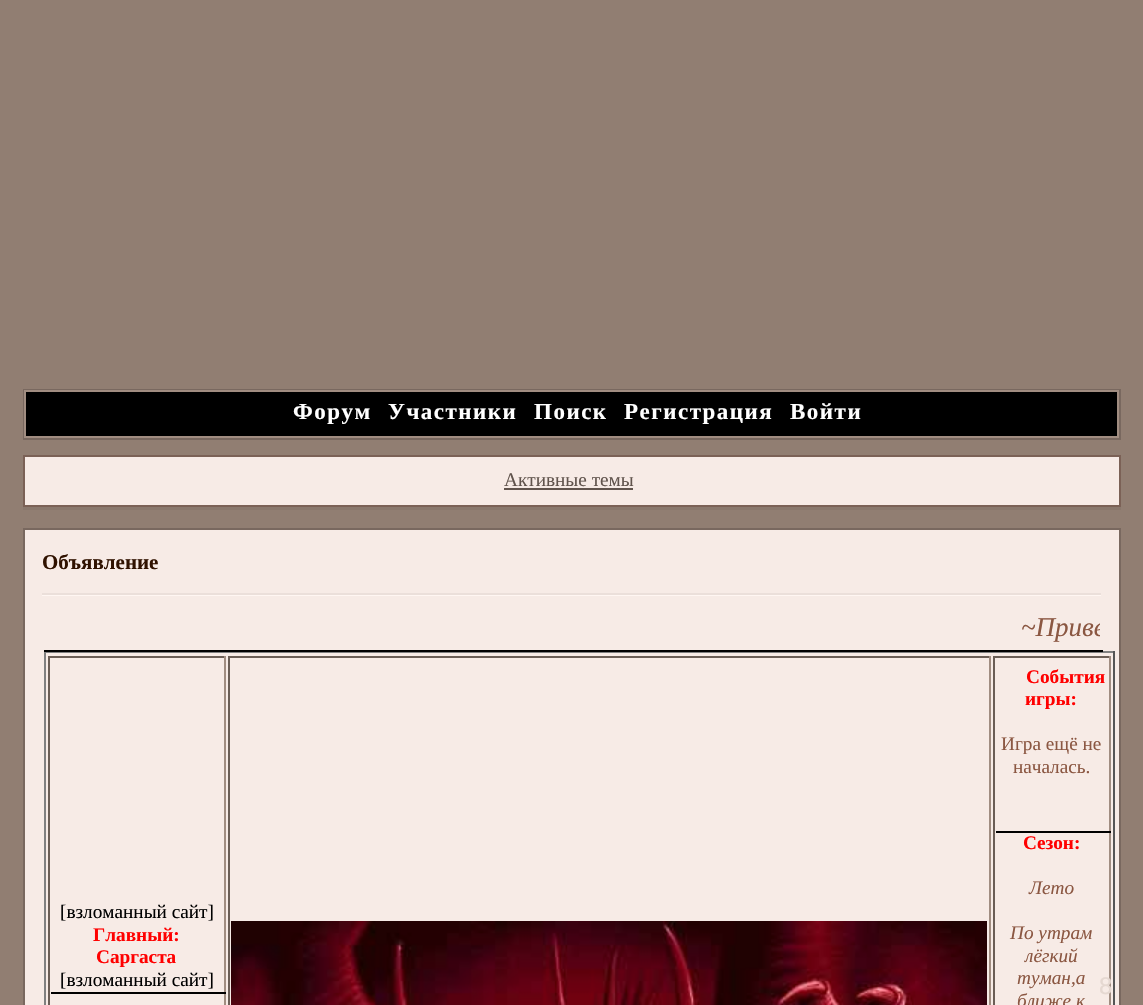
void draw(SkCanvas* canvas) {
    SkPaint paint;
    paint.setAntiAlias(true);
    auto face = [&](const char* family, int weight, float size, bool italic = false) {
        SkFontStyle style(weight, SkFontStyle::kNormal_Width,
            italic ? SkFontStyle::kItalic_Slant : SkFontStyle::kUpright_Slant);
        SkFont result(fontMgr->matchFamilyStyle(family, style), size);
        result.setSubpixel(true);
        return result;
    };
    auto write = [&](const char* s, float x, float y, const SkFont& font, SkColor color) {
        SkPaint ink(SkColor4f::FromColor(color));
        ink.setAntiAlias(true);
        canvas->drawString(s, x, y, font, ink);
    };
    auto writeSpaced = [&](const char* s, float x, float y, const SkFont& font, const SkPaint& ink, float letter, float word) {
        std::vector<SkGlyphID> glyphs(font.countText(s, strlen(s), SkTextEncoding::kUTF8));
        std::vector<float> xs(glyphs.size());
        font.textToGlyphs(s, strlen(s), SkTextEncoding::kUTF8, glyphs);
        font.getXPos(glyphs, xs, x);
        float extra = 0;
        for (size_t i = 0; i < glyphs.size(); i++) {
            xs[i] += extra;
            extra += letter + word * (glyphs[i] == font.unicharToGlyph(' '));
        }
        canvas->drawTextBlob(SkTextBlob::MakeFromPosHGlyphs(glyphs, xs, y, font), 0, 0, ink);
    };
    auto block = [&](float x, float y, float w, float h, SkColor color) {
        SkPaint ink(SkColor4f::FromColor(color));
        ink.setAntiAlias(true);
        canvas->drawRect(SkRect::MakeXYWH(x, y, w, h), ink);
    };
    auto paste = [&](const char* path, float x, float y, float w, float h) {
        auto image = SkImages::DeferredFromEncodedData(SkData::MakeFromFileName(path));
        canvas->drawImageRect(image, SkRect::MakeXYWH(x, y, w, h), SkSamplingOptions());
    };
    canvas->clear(SkColorSetRGB(145, 126, 114));
    paint.setStyle(SkPaint::kStroke_Style);
    paint.setStrokeWidth(2);
    paint.setColor(SkColorSetRGB(121, 104, 95));
    canvas->drawRect(SkRect::MakeXYWH(24, 390, 1096, 49), paint);
    paint.setStyle(SkPaint::kFill_Style);
    paint.setColor(SK_ColorBLACK);
    canvas->drawRect(SkRect::MakeXYWH(25, 391, 1093, 46), paint);
    paint.setStyle(SkPaint::kStroke_Style);
    paint.setColor(SkColorSetRGB(161, 141, 129));
    canvas->drawRect(SkRect::MakeXYWH(25, 391, 1093, 46), paint);
    auto kFont1 = face("Liberation Serif", 700, 23);
    paint.setStyle(SkPaint::kFill_Style);
    paint.setColor(SK_ColorWHITE);
    writeSpaced("Форум", 293, 419, kFont1, paint, 1.5f, 0);
    writeSpaced("Участники", 388, 419, kFont1, paint, 1.5f, 0);
    writeSpaced("Поиск", 534, 419, kFont1, paint, 1.5f, 0);
    writeSpaced("Регистрация", 624, 419, kFont1, paint, 1.5f, 0);
    writeSpaced("Войти", 790, 419, kFont1, paint, 1.5f, 0);
    block(23, 507, 1098, 3, SkColorSetRGB(138, 120, 109));
    paint.setColor(SkColorSetRGB(247, 235, 230));
    canvas->drawRect(SkRect::MakeXYWH(24, 456, 1096, 50), paint);
    paint.setStyle(SkPaint::kStroke_Style);
    paint.setColor(SkColorSetRGB(123, 97, 86));
    canvas->drawRect(SkRect::MakeXYWH(24, 456, 1096, 50), paint);
    auto kFont2 = face("Liberation Serif", 400, 19.25f);
    write("Активные темы", 504, 486, kFont2, SkColorSetRGB(97, 84, 77));
    block(504, 488, 129, 2, SkColorSetRGB(97, 84, 77));
    paint.setStyle(SkPaint::kFill_Style);
    paint.setColor(SkColorSetRGB(247, 235, 230));
    canvas->drawRect(SkRect::MakeXYWH(24, 529, 1096, 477), paint);
    paint.setStyle(SkPaint::kStroke_Style);
    paint.setColor(SkColorSetRGB(121, 104, 95));
    canvas->drawRect(SkRect::MakeXYWH(24, 529, 1096, 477), paint);
    block(42, 595, 1059, 1, SkColorSetRGB(255, 246, 242));
    block(42, 593, 1059, 2, SkColorSetRGB(235, 223, 218));
    auto kFont3 = face("Liberation Serif", 700, 21);
    write("Объявление", 42, 569, kFont3, SkColorSetRGB(48, 18, 0));
    canvas->save();
    canvas->clipRect(SkRect::MakeXYWH(44, 612, 1056, 32));
    auto kFont4 = face("Liberation Serif", 400, 27, true);
    write("~Приве", 1021, 636, kFont4, SkColorSetRGB(139, 87, 66));
    canvas->restore();
    block(44, 651, 1071, 2, SkColorSetRGB(128, 128, 128));
    block(44, 651, 2, 354, SkColorSetRGB(128, 128, 128));
    block(44, 650, 1059, 2, SK_ColorBLACK);
    block(1113, 651, 2, 354, SkColorSetRGB(85, 85, 85));
    block(48, 656, 177, 2, SkColorSetRGB(107, 94, 86));
    block(224, 656, 2, 349, SkColorSetRGB(161, 141, 129));
    block(48, 656, 2, 349, SkColorSetRGB(107, 94, 86));
    write("[взломанный сайт]", 60, 918, kFont2, SK_ColorBLACK);
    auto kFont5 = face("Liberation Serif", 700, 19.25f);
    write("Главный:", 93, 941, kFont5, SkColorSetRGB(255, 0, 0));
    write("Саргаста", 96, 963, kFont5, SkColorSetRGB(255, 0, 0));
    write("[взломанный сайт]", 60, 986, kFont2, SK_ColorBLACK);
    block(51, 992, 175, 2, SK_ColorBLACK);
    block(228, 656, 762, 2, SkColorSetRGB(107, 94, 86));
    block(989, 656, 2, 349, SkColorSetRGB(161, 141, 129));
    block(228, 656, 2, 349, SkColorSetRGB(107, 94, 86));
    paste("pic1.png", 231, 921, 756, 84);
    block(993, 656, 117, 2, SkColorSetRGB(107, 94, 86));
    block(1109, 656, 2, 349, SkColorSetRGB(161, 141, 129));
    block(993, 656, 2, 349, SkColorSetRGB(107, 94, 86));
    write("События", 1026, 683, kFont5, SkColorSetRGB(255, 0, 0));
    write("игры:", 1025, 705, kFont5, SkColorSetRGB(255, 0, 0));
    write("Игра ещё не", 1001, 750, kFont2, SkColorSetRGB(139, 87, 66));
    write("началась.", 1013, 773, kFont2, SkColorSetRGB(139, 87, 66));
    block(996, 831, 115, 2, SK_ColorBLACK);
    write("Сезон:", 1023, 849, kFont5, SkColorSetRGB(255, 0, 0));
    auto kFont6 = face("Liberation Serif", 400, 19.25f, true);
    write("Лето", 1029, 894, kFont6, SkColorSetRGB(139, 87, 66));
    write("По утрам", 1010, 939, kFont6, SkColorSetRGB(139, 87, 66));
    write("лёгкий", 1025, 962, kFont6, SkColorSetRGB(139, 87, 66));
    write("туман,а", 1017, 984, kFont6, SkColorSetRGB(139, 87, 66));
    write("ближе к", 1017, 1007, kFont6, SkColorSetRGB(139, 87, 66));
    auto kFont7 = face("Liberation Sans", 400, 24);
    write("8", 1099, 994, kFont7, SkColorSetRGB(229, 216, 209));
}
